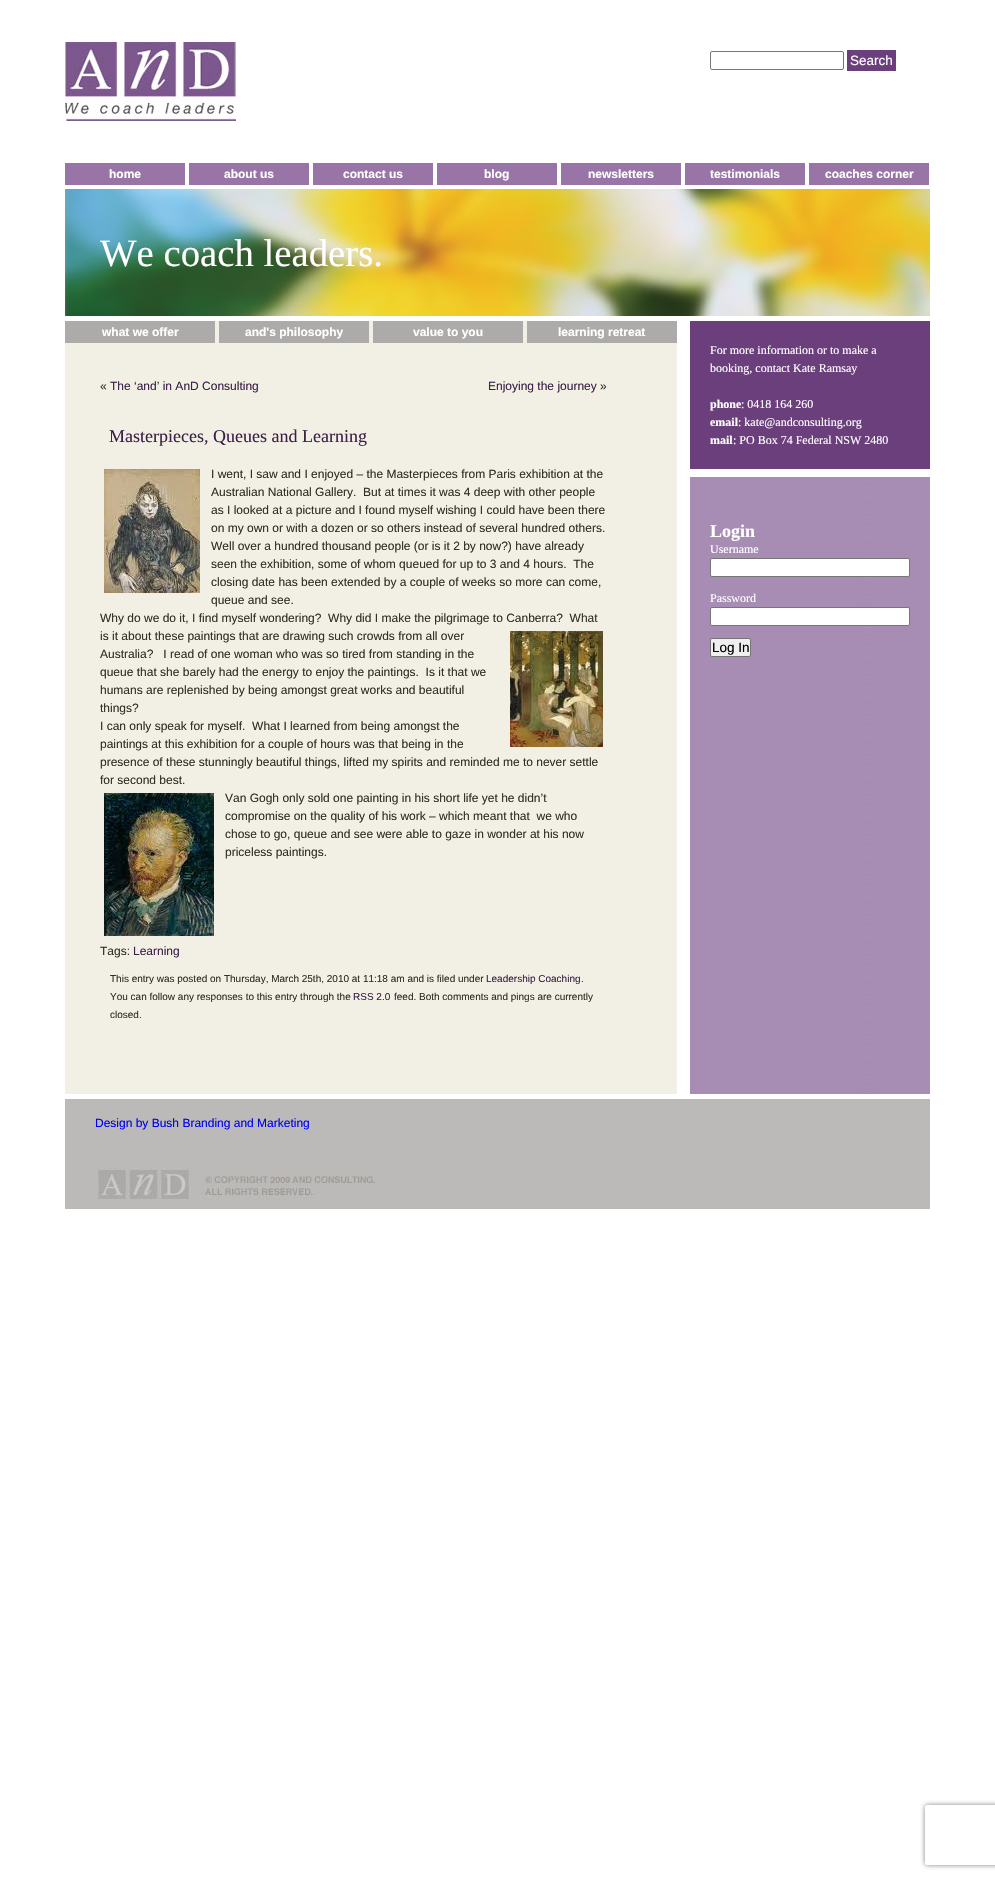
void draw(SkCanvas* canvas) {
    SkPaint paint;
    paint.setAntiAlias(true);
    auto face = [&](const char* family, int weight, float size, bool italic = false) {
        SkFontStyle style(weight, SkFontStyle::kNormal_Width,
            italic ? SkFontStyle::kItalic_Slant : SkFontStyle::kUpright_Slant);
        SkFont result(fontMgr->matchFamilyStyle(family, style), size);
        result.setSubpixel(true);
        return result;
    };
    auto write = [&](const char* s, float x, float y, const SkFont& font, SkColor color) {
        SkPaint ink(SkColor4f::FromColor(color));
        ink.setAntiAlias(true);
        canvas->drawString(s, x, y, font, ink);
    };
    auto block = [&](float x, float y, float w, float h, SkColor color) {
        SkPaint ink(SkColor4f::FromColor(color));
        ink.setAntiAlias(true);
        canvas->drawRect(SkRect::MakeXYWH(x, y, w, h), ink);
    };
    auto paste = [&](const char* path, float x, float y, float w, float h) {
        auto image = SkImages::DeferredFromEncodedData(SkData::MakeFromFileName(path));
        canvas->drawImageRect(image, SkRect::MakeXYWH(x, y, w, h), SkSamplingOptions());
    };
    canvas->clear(SK_ColorWHITE);
    paste("pic1.png", 65, 42, 171, 79);
    paint.setStyle(SkPaint::kStroke_Style);
    paint.setStrokeWidth(1);
    paint.setColor(SkColorSetRGB(118, 118, 118));
    canvas->drawRoundRect(SkRect::MakeXYWH(710.5f, 51.5f, 133, 18), 1.5f, 1.5f, paint);
    block(847, 50, 49, 21, SkColorSetRGB(107, 63, 124));
    auto kFont1 = face("Liberation Sans", 400, 13.5f);
    write("Search", 850, 65, kFont1, SK_ColorWHITE);
    block(65, 163, 120, 22, SkColorSetRGB(152, 117, 166));
    auto kFont2 = face("Liberation Sans", 700, 12);
    write("home", 109, 178, kFont2, SK_ColorWHITE);
    block(189, 163, 120, 22, SkColorSetRGB(152, 117, 166));
    write("about us", 224, 178, kFont2, SK_ColorWHITE);
    block(313, 163, 120, 22, SkColorSetRGB(152, 117, 166));
    write("contact us", 343, 178, kFont2, SK_ColorWHITE);
    block(437, 163, 120, 22, SkColorSetRGB(152, 117, 166));
    write("blog", 484, 178, kFont2, SK_ColorWHITE);
    block(561, 163, 120, 22, SkColorSetRGB(152, 117, 166));
    write("newsletters", 588, 178, kFont2, SK_ColorWHITE);
    block(685, 163, 120, 22, SkColorSetRGB(152, 117, 166));
    write("testimonials", 710, 178, kFont2, SK_ColorWHITE);
    block(809, 163, 120, 22, SkColorSetRGB(152, 117, 166));
    write("coaches corner", 825, 178, kFont2, SK_ColorWHITE);
    paste("pic2.png", 65, 189, 865, 127);
    auto kFont3 = face("Liberation Serif", 400, 38.75f);
    write("We coach leaders.", 100, 266, kFont3, SK_ColorWHITE);
    paste("pic3.png", 65, 321, 865, 773);
    block(65, 321, 150, 22, SkColorSetRGB(173, 171, 169));
    write("what we offer", 102, 336, kFont2, SK_ColorWHITE);
    block(219, 321, 150, 22, SkColorSetRGB(173, 171, 169));
    write("and's philosophy", 245, 336, kFont2, SK_ColorWHITE);
    block(373, 321, 150, 22, SkColorSetRGB(173, 171, 169));
    write("value to you", 413, 336, kFont2, SK_ColorWHITE);
    block(527, 321, 150, 22, SkColorSetRGB(173, 171, 169));
    write("learning retreat", 558, 336, kFont2, SK_ColorWHITE);
    auto kFont4 = face("Liberation Sans", 400, 12);
    write("«", 100, 390, kFont4, SkColorSetRGB(49, 46, 39));
    write("The ‘and’ in AnD Consulting", 110, 390, kFont4, SkColorSetRGB(60, 32, 71));
    write("Enjoying the journey", 488, 390, kFont4, SkColorSetRGB(60, 32, 71));
    write("»", 600, 390, kFont4, SkColorSetRGB(49, 46, 39));
    auto kFont5 = face("Liberation Serif", 400, 18);
    write("Masterpieces, Queues and Learning", 109, 442, kFont5, SkColorSetRGB(60, 32, 71));
    paste("pic4.png", 104, 469, 96, 124);
    write("I went, I saw and I enjoyed – the Masterpieces from Paris exhibition at the", 211, 478, kFont4, SkColorSetRGB(49, 46, 39));
    write("Australian National Gallery.  But at times it was 4 deep with other people", 211, 496, kFont4, SkColorSetRGB(49, 46, 39));
    write("as I looked at a picture and I found myself wishing I could have been there", 211, 514, kFont4, SkColorSetRGB(49, 46, 39));
    write("on my own or with a dozen or so others instead of several hundred others.", 211, 532, kFont4, SkColorSetRGB(49, 46, 39));
    write("Well over a hundred thousand people (or is it 2 by now?) have already", 211, 550, kFont4, SkColorSetRGB(49, 46, 39));
    write("seen the exhibition, some of whom queued for up to 3 and 4 hours.  The", 211, 568, kFont4, SkColorSetRGB(49, 46, 39));
    write("closing date has been extended by a couple of weeks so more can come,", 211, 586, kFont4, SkColorSetRGB(49, 46, 39));
    write("queue and see.", 211, 604, kFont4, SkColorSetRGB(49, 46, 39));
    write("Why do we do it, I find myself wondering?  Why did I make the pilgrimage to Canberra?  What", 100, 622, kFont4, SkColorSetRGB(49, 46, 39));
    write("is it about these paintings that are drawing such crowds from all over", 100, 640, kFont4, SkColorSetRGB(49, 46, 39));
    paste("pic5.png", 510, 631, 93, 116);
    write("Australia?   I read of one woman who was so tired from standing in the", 100, 658, kFont4, SkColorSetRGB(49, 46, 39));
    write("queue that she barely had the energy to enjoy the paintings.  Is it that we", 100, 676, kFont4, SkColorSetRGB(49, 46, 39));
    write("humans are replenished by being amongst great works and beautiful", 100, 694, kFont4, SkColorSetRGB(49, 46, 39));
    write("things?", 100, 712, kFont4, SkColorSetRGB(49, 46, 39));
    write("I can only speak for myself.  What I learned from being amongst the", 100, 730, kFont4, SkColorSetRGB(49, 46, 39));
    write("paintings at this exhibition for a couple of hours was that being in the", 100, 748, kFont4, SkColorSetRGB(49, 46, 39));
    write("presence of these stunningly beautiful things, lifted my spirits and reminded me to never settle", 100, 766, kFont4, SkColorSetRGB(49, 46, 39));
    write("for second best.", 100, 784, kFont4, SkColorSetRGB(49, 46, 39));
    paste("pic6.png", 104, 793, 110, 143);
    write("Van Gogh only sold one painting in his short life yet he didn’t", 225, 802, kFont4, SkColorSetRGB(49, 46, 39));
    write("compromise on the quality of his work – which meant that  we who", 225, 820, kFont4, SkColorSetRGB(49, 46, 39));
    write("chose to go, queue and see were able to gaze in wonder at his now", 225, 838, kFont4, SkColorSetRGB(49, 46, 39));
    write("priceless paintings.", 225, 856, kFont4, SkColorSetRGB(49, 46, 39));
    write("Tags:", 100, 955, kFont4, SkColorSetRGB(49, 46, 39));
    write("Learning", 133, 955, kFont4, SkColorSetRGB(60, 32, 71));
    auto kFont6 = face("Liberation Sans", 400, 10);
    write("This entry was posted on Thursday, March 25th, 2010 at 11:18 am and is filed under", 110, 982, kFont6, SkColorSetRGB(49, 46, 39));
    write("Leadership Coaching", 486, 982, kFont6, SkColorSetRGB(60, 32, 71));
    write(".", 581, 982, kFont6, SkColorSetRGB(49, 46, 39));
    write("You can follow any responses to this entry through the", 110, 1000, kFont6, SkColorSetRGB(49, 46, 39));
    write("RSS 2.0", 353, 1000, kFont6, SkColorSetRGB(60, 32, 71));
    write("feed. Both comments and pings are currently", 394, 1000, kFont6, SkColorSetRGB(49, 46, 39));
    write("closed.", 110, 1018, kFont6, SkColorSetRGB(49, 46, 39));
    block(690, 321, 240, 148, SkColorSetRGB(107, 63, 124));
    block(690, 469, 240, 8, SK_ColorWHITE);
    auto kFont7 = face("Liberation Serif", 400, 12);
    write("For more information or to make a", 710, 354, kFont7, SK_ColorWHITE);
    write("booking, contact Kate Ramsay", 710, 372, kFont7, SK_ColorWHITE);
    auto kFont8 = face("Liberation Serif", 700, 12);
    write("phone", 710, 408, kFont8, SK_ColorWHITE);
    write(": 0418 164 260", 741, 408, kFont7, SK_ColorWHITE);
    write("email", 710, 426, kFont8, SK_ColorWHITE);
    write(": kate@andconsulting.org", 738, 426, kFont7, SK_ColorWHITE);
    write("mail", 710, 444, kFont8, SK_ColorWHITE);
    write(": PO Box 74 Federal NSW 2480", 733, 444, kFont7, SK_ColorWHITE);
    auto kFont9 = face("Liberation Serif", 700, 18);
    write("Login", 710, 537, kFont9, SK_ColorWHITE);
    write("Username", 710, 553, kFont7, SK_ColorWHITE);
    paint.setStyle(SkPaint::kFill_Style);
    paint.setColor(SK_ColorWHITE);
    canvas->drawRoundRect(SkRect::MakeXYWH(710.5f, 558.5f, 199, 18), 1.5f, 1.5f, paint);
    paint.setStyle(SkPaint::kStroke_Style);
    paint.setColor(SkColorSetRGB(118, 118, 118));
    canvas->drawRoundRect(SkRect::MakeXYWH(710.5f, 558.5f, 199, 18), 1.5f, 1.5f, paint);
    write("Password", 710, 602, kFont7, SK_ColorWHITE);
    paint.setStyle(SkPaint::kFill_Style);
    paint.setColor(SK_ColorWHITE);
    canvas->drawRoundRect(SkRect::MakeXYWH(710.5f, 607.5f, 199, 18), 1.5f, 1.5f, paint);
    paint.setStyle(SkPaint::kStroke_Style);
    paint.setColor(SkColorSetRGB(118, 118, 118));
    canvas->drawRoundRect(SkRect::MakeXYWH(710.5f, 607.5f, 199, 18), 1.5f, 1.5f, paint);
    paint.setStyle(SkPaint::kFill_Style);
    paint.setColor(SkColorSetRGB(239, 239, 239));
    canvas->drawRoundRect(SkRect::MakeXYWH(710.5f, 638.5f, 40, 18), 1.5f, 1.5f, paint);
    paint.setStyle(SkPaint::kStroke_Style);
    paint.setColor(SkColorSetRGB(118, 118, 118));
    canvas->drawRoundRect(SkRect::MakeXYWH(710.5f, 638.5f, 40, 18), 1.5f, 1.5f, paint);
    write("Log In", 712, 652, kFont1, SK_ColorBLACK);
    block(65, 1099, 865, 110, SkColorSetRGB(187, 186, 184));
    write("Design by Bush Branding and Marketing", 95, 1127, kFont4, SkColorSetRGB(0, 0, 238));
    paste("pic7.png", 98, 1168, 277, 31);
    canvas->save();
    canvas->clipPath(SkPathBuilder(SkPathFillType::kEvenOdd).moveTo(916, 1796).lineTo(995, 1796).lineTo(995, 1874).lineTo(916, 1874).close().moveTo(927, 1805).lineTo(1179, 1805).cubicTo(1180, 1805, 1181, 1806, 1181, 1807).lineTo(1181, 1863).cubicTo(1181, 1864, 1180, 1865, 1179, 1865).lineTo(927, 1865).cubicTo(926, 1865, 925, 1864, 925, 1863).lineTo(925, 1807).cubicTo(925, 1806, 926, 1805, 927, 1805).close().detach(), true);
    paint.setStyle(SkPaint::kFill_Style);
    paint.setColor(SkColorSetRGB(128, 128, 128));
    paint.setMaskFilter(SkMaskFilter::MakeBlur(kNormal_SkBlurStyle, 2.5f));
    canvas->drawRoundRect(SkRect::MakeXYWH(925, 1805, 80, 60), 2, 2, paint);
    paint.setMaskFilter(nullptr);
    canvas->restore();
}
